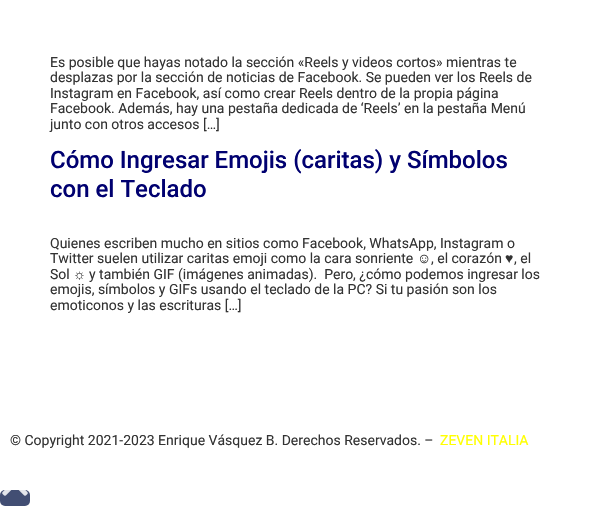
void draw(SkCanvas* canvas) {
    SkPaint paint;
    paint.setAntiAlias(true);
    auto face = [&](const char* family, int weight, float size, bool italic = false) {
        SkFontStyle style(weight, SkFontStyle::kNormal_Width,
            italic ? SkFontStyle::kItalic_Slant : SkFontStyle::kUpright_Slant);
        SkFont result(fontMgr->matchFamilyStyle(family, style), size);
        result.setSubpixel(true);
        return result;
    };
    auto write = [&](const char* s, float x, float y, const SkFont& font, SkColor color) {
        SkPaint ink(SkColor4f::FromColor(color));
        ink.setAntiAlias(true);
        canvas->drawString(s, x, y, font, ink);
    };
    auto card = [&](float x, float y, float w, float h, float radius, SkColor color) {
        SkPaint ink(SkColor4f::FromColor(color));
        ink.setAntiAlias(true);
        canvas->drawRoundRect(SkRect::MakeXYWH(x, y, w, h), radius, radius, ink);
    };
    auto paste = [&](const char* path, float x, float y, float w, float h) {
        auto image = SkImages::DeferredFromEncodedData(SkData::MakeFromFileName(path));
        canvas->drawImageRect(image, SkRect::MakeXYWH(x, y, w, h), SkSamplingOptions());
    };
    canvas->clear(SK_ColorWHITE);
    auto kFont1 = face("Roboto", 400, 14);
    write("Es posible que hayas notado la sección «Reels y videos cortos» mientras te", 50, 67, kFont1, SkColorSetRGB(51, 51, 51));
    write("desplazas por la sección de noticias de Facebook. Se pueden ver los Reels de", 50, 82, kFont1, SkColorSetRGB(51, 51, 51));
    write("Instagram en Facebook, así como crear Reels dentro de la propia página", 50, 98, kFont1, SkColorSetRGB(51, 51, 51));
    write("Facebook. Además, hay una pestaña dedicada de ‘Reels’ en la pestaña Menú", 50, 113, kFont1, SkColorSetRGB(51, 51, 51));
    write("junto con otros accesos […]", 50, 129, kFont1, SkColorSetRGB(51, 51, 51));
    auto kFont2 = face("Roboto", 500, 24);
    write("Cómo Ingresar Emojis (caritas) y Símbolos", 50, 168, kFont2, SkColorSetRGB(0, 0, 112));
    write("con el Teclado", 50, 197, kFont2, SkColorSetRGB(0, 0, 112));
    write("Quienes escriben mucho en sitios como Facebook, WhatsApp, Instagram o", 50, 248, kFont1, SkColorSetRGB(51, 51, 51));
    write("Twitter suelen utilizar caritas emoji como la cara sonriente", 50, 263, kFont1, SkColorSetRGB(51, 51, 51));
    auto kFont3 = face("Liberation Sans", 400, 14);
    write("☺", 417, 263, kFont3, SkColorSetRGB(51, 51, 51));
    write(", el corazón", 431, 263, kFont1, SkColorSetRGB(51, 51, 51));
    write("♥", 505, 263, kFont3, SkColorSetRGB(51, 51, 51));
    write(", el", 514, 263, kFont1, SkColorSetRGB(51, 51, 51));
    write("Sol", 50, 279, kFont1, SkColorSetRGB(51, 51, 51));
    write("☼", 73, 279, kFont3, SkColorSetRGB(51, 51, 51));
    write("y también GIF (imágenes animadas).  Pero, ¿cómo podemos ingresar los", 89, 279, kFont1, SkColorSetRGB(51, 51, 51));
    write("emojis, símbolos y GIFs usando el teclado de la PC? Si tu pasión son los", 50, 294, kFont1, SkColorSetRGB(51, 51, 51));
    write("emoticonos y las escrituras […]", 50, 310, kFont1, SkColorSetRGB(51, 51, 51));
    write("© Copyright 2021-2023 Enrique Vásquez B. Derechos Reservados. –", 10, 445, kFont1, SkColorSetRGB(51, 51, 51));
    write("ZEVEN ITALIA", 440, 445, kFont1, SkColorSetRGB(255, 255, 0));
    card(0, 490, 30, 16, 5, SkColorSetRGB(66, 78, 115));
    paste("pic1.png", 2, 490, 26, 6);
}
